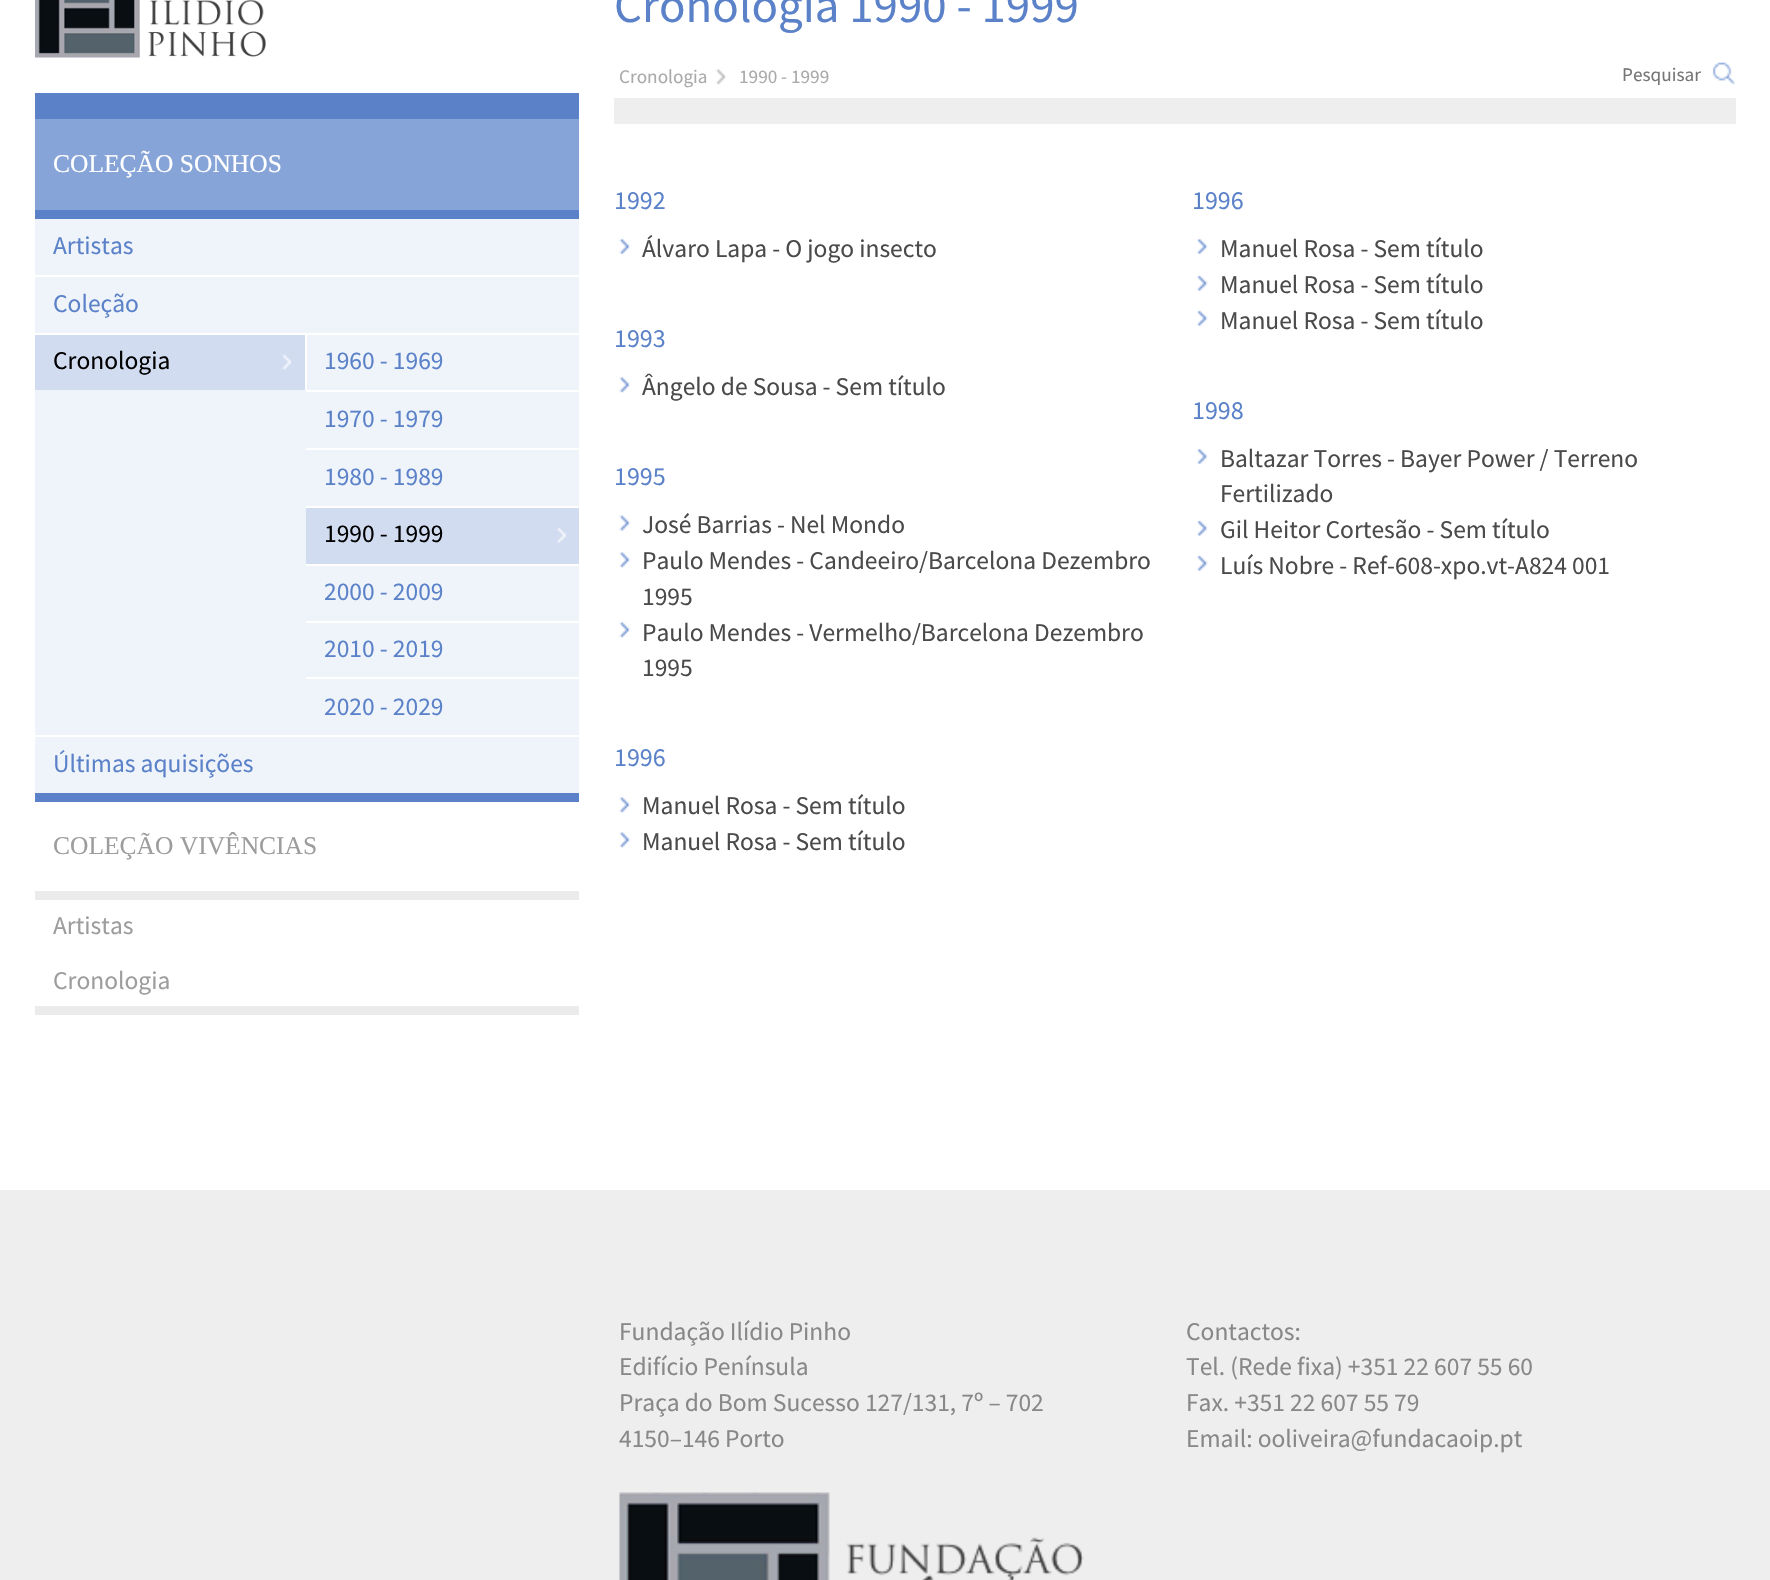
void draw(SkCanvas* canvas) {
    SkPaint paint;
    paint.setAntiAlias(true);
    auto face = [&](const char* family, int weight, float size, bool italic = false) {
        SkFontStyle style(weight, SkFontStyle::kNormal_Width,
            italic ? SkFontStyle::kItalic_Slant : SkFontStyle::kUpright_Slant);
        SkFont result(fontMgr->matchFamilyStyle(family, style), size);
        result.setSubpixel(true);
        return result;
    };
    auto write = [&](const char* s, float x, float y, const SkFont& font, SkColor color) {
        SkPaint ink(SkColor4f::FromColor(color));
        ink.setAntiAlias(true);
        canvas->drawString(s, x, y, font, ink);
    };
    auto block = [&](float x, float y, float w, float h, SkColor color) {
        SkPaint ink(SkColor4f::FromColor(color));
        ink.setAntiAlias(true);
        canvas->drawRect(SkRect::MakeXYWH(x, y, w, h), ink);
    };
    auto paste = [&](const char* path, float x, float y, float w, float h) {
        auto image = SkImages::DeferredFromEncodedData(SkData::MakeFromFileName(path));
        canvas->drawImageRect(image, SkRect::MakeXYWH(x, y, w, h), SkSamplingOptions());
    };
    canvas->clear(SK_ColorWHITE);
    paste("pic1.png", 35, 0, 231, 58);
    auto kFont1 = face("Source Sans Pro", 400, 49);
    write("Cronologia 1990 - 1999", 614, 22, kFont1, SkColorSetRGB(91, 130, 201));
    block(614, 98, 1122, 26, SkColorSetRGB(238, 238, 238));
    auto kFont2 = face("Source Sans Pro", 400, 19.25f);
    write("Cronologia", 619, 83, kFont2, SkColorSetRGB(170, 170, 170));
    paste("pic2.png", 715, 68, 12, 17);
    write("1990 - 1999", 739, 83, kFont2, SkColorSetRGB(170, 170, 170));
    auto kFont3 = face("Source Sans Pro", 400, 26);
    write("1992", 614, 209, kFont3, SkColorSetRGB(91, 130, 201));
    paste("pic3.png", 619, 238, 12, 17);
    auto kFont4 = face("Source Sans Pro", 400, 25.5f);
    write("Álvaro Lapa - O jogo insecto", 642, 257, kFont4, SkColorSetRGB(74, 74, 74));
    write("1993", 614, 347, kFont3, SkColorSetRGB(91, 130, 201));
    paste("pic4.png", 619, 376, 12, 17);
    write("Ângelo de Sousa - Sem título", 642, 395, kFont4, SkColorSetRGB(74, 74, 74));
    write("1995", 614, 485, kFont3, SkColorSetRGB(91, 130, 201));
    paste("pic5.png", 619, 514, 12, 18);
    write("José Barrias - Nel Mondo", 642, 533, kFont4, SkColorSetRGB(74, 74, 74));
    paste("pic4.png", 619, 551, 12, 17);
    write("Paulo Mendes - Candeeiro/Barcelona Dezembro", 642, 569, kFont4, SkColorSetRGB(74, 74, 74));
    write("1995", 642, 605, kFont4, SkColorSetRGB(74, 74, 74));
    paste("pic4.png", 619, 621, 12, 17);
    write("Paulo Mendes - Vermelho/Barcelona Dezembro", 642, 641, kFont4, SkColorSetRGB(74, 74, 74));
    write("1995", 642, 676, kFont4, SkColorSetRGB(74, 74, 74));
    write("1996", 614, 766, kFont3, SkColorSetRGB(91, 130, 201));
    paste("pic4.png", 619, 796, 12, 17);
    write("Manuel Rosa - Sem título", 642, 814, kFont4, SkColorSetRGB(74, 74, 74));
    paste("pic4.png", 619, 831, 12, 17);
    write("Manuel Rosa - Sem título", 642, 850, kFont4, SkColorSetRGB(74, 74, 74));
    write("1996", 1192, 209, kFont3, SkColorSetRGB(91, 130, 201));
    paste("pic6.png", 1196, 238, 12, 17);
    write("Manuel Rosa - Sem título", 1220, 257, kFont4, SkColorSetRGB(74, 74, 74));
    paste("pic7.png", 1196, 275, 12, 17);
    write("Manuel Rosa - Sem título", 1220, 293, kFont4, SkColorSetRGB(74, 74, 74));
    paste("pic7.png", 1196, 310, 12, 17);
    write("Manuel Rosa - Sem título", 1220, 329, kFont4, SkColorSetRGB(74, 74, 74));
    write("1998", 1192, 419, kFont3, SkColorSetRGB(91, 130, 201));
    paste("pic6.png", 1196, 448, 12, 17);
    write("Baltazar Torres - Bayer Power / Terreno", 1220, 467, kFont4, SkColorSetRGB(74, 74, 74));
    write("Fertilizado", 1220, 502, kFont4, SkColorSetRGB(74, 74, 74));
    paste("pic7.png", 1196, 520, 12, 17);
    write("Gil Heitor Cortesão - Sem título", 1220, 538, kFont4, SkColorSetRGB(74, 74, 74));
    paste("pic7.png", 1196, 555, 12, 17);
    write("Luís Nobre - Ref-608-xpo.vt-A824 001", 1220, 574, kFont4, SkColorSetRGB(74, 74, 74));
    paste("pic8.png", 1712, 62, 23, 23);
    write("Pesquisar", 1622, 81, kFont2, SkColorSetRGB(117, 117, 117));
    block(35, 219, 544, 574, SkColorSetRGB(239, 243, 250));
    block(35, 93, 544, 26, SkColorSetRGB(91, 130, 201));
    block(35, 793, 544, 9, SkColorSetRGB(91, 130, 201));
    block(35, 119, 544, 91, SkColorSetRGB(135, 164, 216));
    block(35, 210, 544, 9, SkColorSetRGB(91, 130, 201));
    auto kFont5 = face("Liberation Serif", 400, 25.5f);
    write("COLEÇÃO SONHOS", 53, 172, kFont5, SK_ColorWHITE);
    write("Artistas", 53, 254, kFont4, SkColorSetRGB(91, 130, 201));
    block(35, 275, 544, 2, SK_ColorWHITE);
    write("Coleção", 53, 312, kFont4, SkColorSetRGB(91, 130, 201));
    block(35, 335, 270, 55, SkColorSetRGB(209, 220, 240));
    paste("pic9.png", 282, 354, 10, 16);
    block(35, 333, 271, 2, SK_ColorWHITE);
    block(305, 333, 2, 57, SK_ColorWHITE);
    write("Cronologia", 53, 369, kFont4, SK_ColorBLACK);
    block(306, 333, 273, 2, SK_ColorWHITE);
    write("1960 - 1969", 324, 369, kFont4, SkColorSetRGB(91, 130, 201));
    block(306, 390, 273, 2, SK_ColorWHITE);
    write("1970 - 1979", 324, 427, kFont4, SkColorSetRGB(91, 130, 201));
    block(306, 448, 273, 2, SK_ColorWHITE);
    write("1980 - 1989", 324, 485, kFont4, SkColorSetRGB(91, 130, 201));
    block(306, 508, 273, 56, SkColorSetRGB(209, 220, 240));
    paste("pic10.png", 557, 527, 10, 16);
    block(306, 506, 273, 2, SK_ColorWHITE);
    write("1990 - 1999", 324, 542, kFont4, SK_ColorBLACK);
    block(306, 564, 273, 2, SK_ColorWHITE);
    write("2000 - 2009", 324, 600, kFont4, SkColorSetRGB(91, 130, 201));
    block(306, 621, 273, 2, SK_ColorWHITE);
    write("2010 - 2019", 324, 657, kFont4, SkColorSetRGB(91, 130, 201));
    block(306, 677, 273, 2, SK_ColorWHITE);
    write("2020 - 2029", 324, 715, kFont4, SkColorSetRGB(91, 130, 201));
    block(35, 735, 544, 2, SK_ColorWHITE);
    write("Últimas aquisições", 53, 772, kFont4, SkColorSetRGB(91, 130, 201));
    block(35, 1006, 544, 9, SkColorSetRGB(235, 235, 235));
    block(35, 891, 544, 9, SkColorSetRGB(235, 235, 235));
    write("COLEÇÃO VIVÊNCIAS", 53, 854, kFont5, SkColorSetRGB(157, 157, 157));
    write("Artistas", 53, 934, kFont4, SkColorSetRGB(157, 157, 157));
    write("Cronologia", 53, 989, kFont4, SkColorSetRGB(157, 157, 157));
    block(0, 1190, 1770, 390, SkColorSetRGB(238, 238, 238));
    write("Fundação Ilídio Pinho", 619, 1340, kFont4, SkColorSetRGB(136, 136, 136));
    write("Edifício Península", 619, 1375, kFont4, SkColorSetRGB(136, 136, 136));
    write("Praça do Bom Sucesso 127/131, 7º – 702", 619, 1411, kFont4, SkColorSetRGB(136, 136, 136));
    write("4150–146 Porto", 619, 1447, kFont4, SkColorSetRGB(136, 136, 136));
    paste("pic11.png", 619, 1492, 465, 88);
    write("Contactos:", 1186, 1340, kFont4, SkColorSetRGB(136, 136, 136));
    write("Tel. (Rede fixa) +351 22 607 55 60", 1186, 1375, kFont4, SkColorSetRGB(136, 136, 136));
    write("Fax. +351 22 607 55 79", 1186, 1411, kFont4, SkColorSetRGB(136, 136, 136));
    write("Email: ooliveira@fundacaoip.pt", 1186, 1447, kFont4, SkColorSetRGB(136, 136, 136));
}
